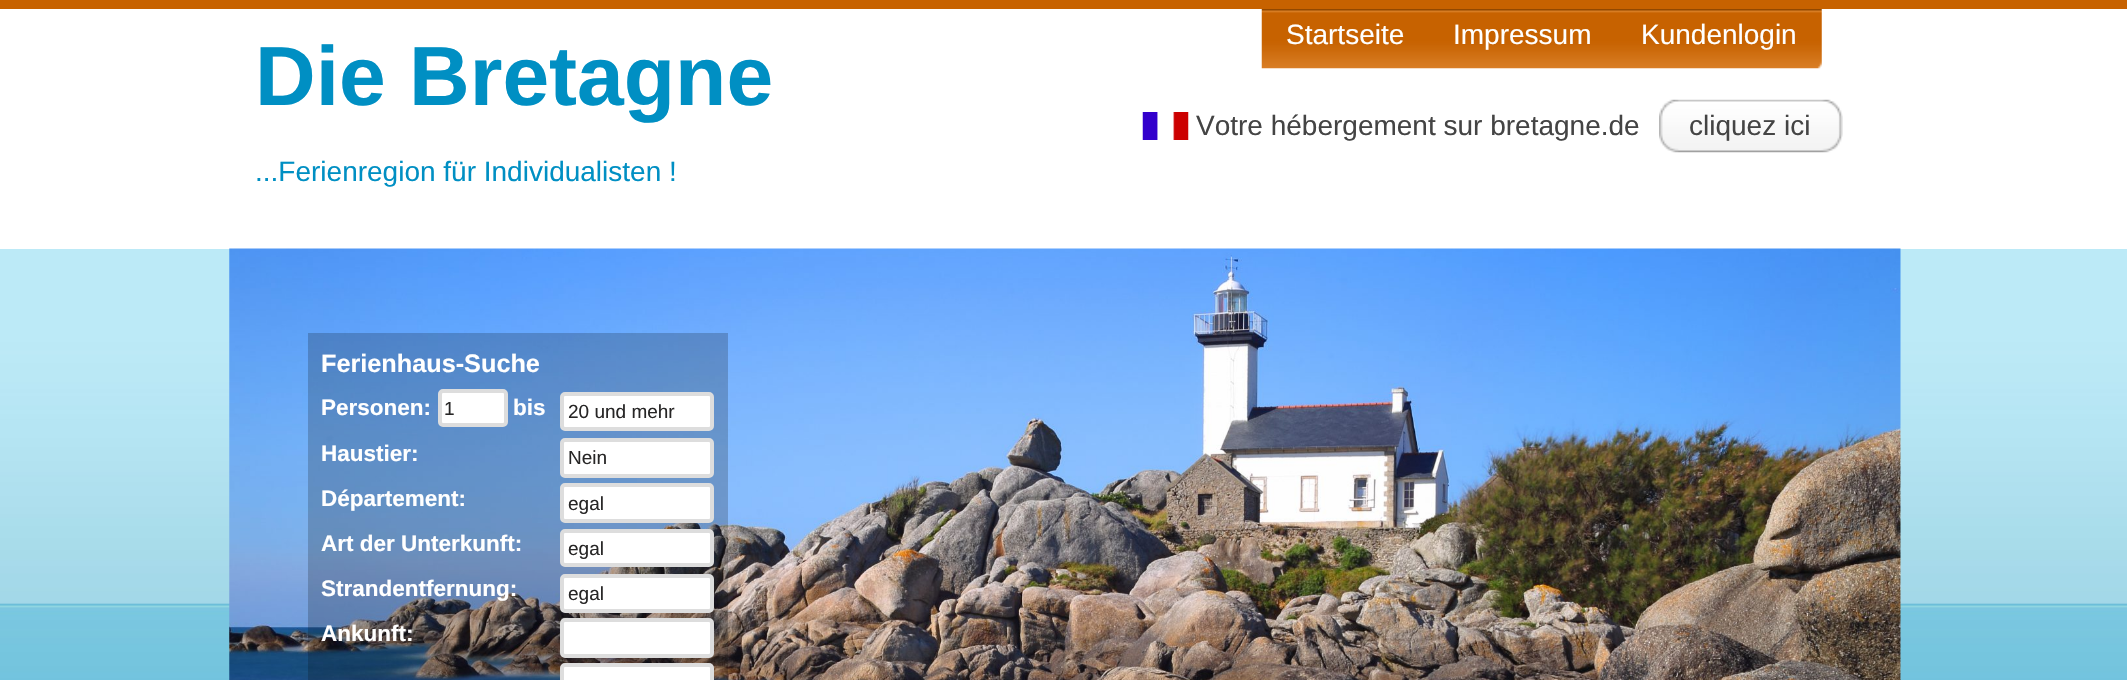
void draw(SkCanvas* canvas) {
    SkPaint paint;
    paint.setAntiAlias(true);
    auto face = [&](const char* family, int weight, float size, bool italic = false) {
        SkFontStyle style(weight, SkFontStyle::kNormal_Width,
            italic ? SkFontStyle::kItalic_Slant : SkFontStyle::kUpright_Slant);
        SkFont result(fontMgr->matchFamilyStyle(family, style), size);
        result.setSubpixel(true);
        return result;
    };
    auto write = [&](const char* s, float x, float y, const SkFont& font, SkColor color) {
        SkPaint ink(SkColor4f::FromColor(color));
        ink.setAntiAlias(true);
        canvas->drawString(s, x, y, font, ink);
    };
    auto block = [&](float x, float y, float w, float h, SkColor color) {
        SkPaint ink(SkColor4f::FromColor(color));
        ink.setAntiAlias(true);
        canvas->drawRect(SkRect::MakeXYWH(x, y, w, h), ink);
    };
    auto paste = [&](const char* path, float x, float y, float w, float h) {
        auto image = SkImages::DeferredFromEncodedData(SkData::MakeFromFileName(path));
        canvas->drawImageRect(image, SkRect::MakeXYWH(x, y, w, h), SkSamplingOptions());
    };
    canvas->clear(SkColorSetRGB(199, 98, 0));
    paste("pic1.png", 0, 249, 2127, 431);
    block(0, 9, 2127, 240, SK_ColorWHITE);
    auto kFont1 = face("Liberation Sans", 700, 84);
    write("Die Bretagne", 255, 105, kFont1, SkColorSetRGB(0, 143, 195));
    auto kFont2 = face("Liberation Sans", 400, 28);
    write("...Ferienregion für Individualisten !", 255, 181, kFont2, SkColorSetRGB(0, 143, 195));
    paste("pic2.png", 1261, 9, 561, 60);
    write("Startseite", 1286, 44, kFont2, SK_ColorWHITE);
    write("Impressum", 1453, 44, kFont2, SK_ColorWHITE);
    write("Kundenlogin", 1641, 44, kFont2, SK_ColorWHITE);
    paste("pic3.png", 1142, 112, 47, 28);
    write("Votre hébergement sur bretagne.de", 1196, 135, kFont2, SkColorSetRGB(68, 68, 68));
    paste("pic4.png", 1659, 99, 184, 54);
    write("cliquez ici", 1689, 135, kFont2, SkColorSetRGB(68, 68, 68));
    paste("pic5.png", 229, 248, 1672, 432);
    block(308, 333, 420, 347, SkColorSetARGB(51, 0, 0, 0));
    auto kFont3 = face("Liberation Sans", 700, 25.25f);
    write("Ferienhaus-Suche", 321, 372, kFont3, SK_ColorWHITE);
    auto kFont4 = face("Liberation Sans", 700, 22.5f);
    write("Personen:", 321, 415, kFont4, SK_ColorWHITE);
    paint.setColor(SK_ColorWHITE);
    canvas->drawRoundRect(SkRect::MakeXYWH(440, 391, 66, 34), 3, 3, paint);
    paint.setStyle(SkPaint::kStroke_Style);
    paint.setStrokeWidth(4);
    paint.setColor(SkColorSetRGB(221, 221, 221));
    canvas->drawRoundRect(SkRect::MakeXYWH(440, 391, 66, 34), 3, 3, paint);
    auto kFont5 = face("Liberation Sans", 400, 19);
    write("1", 444, 415, kFont5, SkColorSetRGB(39, 38, 38));
    write("bis", 513, 415, kFont4, SK_ColorWHITE);
    paint.setStyle(SkPaint::kFill_Style);
    paint.setColor(SK_ColorWHITE);
    canvas->drawRoundRect(SkRect::MakeXYWH(562, 394, 150, 35), 3, 3, paint);
    paint.setStyle(SkPaint::kStroke_Style);
    paint.setColor(SkColorSetRGB(221, 221, 221));
    canvas->drawRoundRect(SkRect::MakeXYWH(562, 394, 150, 35), 3, 3, paint);
    write("20 und mehr", 568, 418, kFont5, SkColorSetRGB(39, 38, 38));
    write("Haustier:", 321, 461, kFont4, SK_ColorWHITE);
    paint.setStyle(SkPaint::kFill_Style);
    paint.setColor(SK_ColorWHITE);
    canvas->drawRoundRect(SkRect::MakeXYWH(562, 440, 150, 36), 3, 3, paint);
    paint.setStyle(SkPaint::kStroke_Style);
    paint.setColor(SkColorSetRGB(221, 221, 221));
    canvas->drawRoundRect(SkRect::MakeXYWH(562, 440, 150, 36), 3, 3, paint);
    write("Nein", 568, 464, kFont5, SkColorSetRGB(39, 38, 38));
    write("Département:", 321, 506, kFont4, SK_ColorWHITE);
    paint.setStyle(SkPaint::kFill_Style);
    paint.setColor(SK_ColorWHITE);
    canvas->drawRoundRect(SkRect::MakeXYWH(562, 485, 150, 36), 3, 3, paint);
    paint.setStyle(SkPaint::kStroke_Style);
    paint.setColor(SkColorSetRGB(221, 221, 221));
    canvas->drawRoundRect(SkRect::MakeXYWH(562, 485, 150, 36), 3, 3, paint);
    write("egal", 568, 510, kFont5, SkColorSetRGB(39, 38, 38));
    write("Art der Unterkunft:", 321, 551, kFont4, SK_ColorWHITE);
    paint.setStyle(SkPaint::kFill_Style);
    paint.setColor(SK_ColorWHITE);
    canvas->drawRoundRect(SkRect::MakeXYWH(562, 531, 150, 34), 3, 3, paint);
    paint.setStyle(SkPaint::kStroke_Style);
    paint.setColor(SkColorSetRGB(221, 221, 221));
    canvas->drawRoundRect(SkRect::MakeXYWH(562, 531, 150, 34), 3, 3, paint);
    write("egal", 568, 555, kFont5, SkColorSetRGB(39, 38, 38));
    write("Strandentfernung:", 321, 596, kFont4, SK_ColorWHITE);
    paint.setStyle(SkPaint::kFill_Style);
    paint.setColor(SK_ColorWHITE);
    canvas->drawRoundRect(SkRect::MakeXYWH(562, 576, 150, 35), 3, 3, paint);
    paint.setStyle(SkPaint::kStroke_Style);
    paint.setColor(SkColorSetRGB(221, 221, 221));
    canvas->drawRoundRect(SkRect::MakeXYWH(562, 576, 150, 35), 3, 3, paint);
    write("egal", 568, 600, kFont5, SkColorSetRGB(39, 38, 38));
    write("Ankunft:", 321, 641, kFont4, SK_ColorWHITE);
    paint.setStyle(SkPaint::kFill_Style);
    paint.setColor(SK_ColorWHITE);
    canvas->drawRoundRect(SkRect::MakeXYWH(562, 620, 150, 36), 3, 3, paint);
    paint.setStyle(SkPaint::kStroke_Style);
    paint.setColor(SkColorSetRGB(221, 221, 221));
    canvas->drawRoundRect(SkRect::MakeXYWH(562, 620, 150, 36), 3, 3, paint);
    paint.setStyle(SkPaint::kFill_Style);
    paint.setColor(SK_ColorWHITE);
    canvas->drawRoundRect(SkRect::MakeXYWH(562, 665, 150, 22), 3, 3, paint);
    paint.setStyle(SkPaint::kStroke_Style);
    paint.setColor(SkColorSetRGB(221, 221, 221));
    canvas->drawRoundRect(SkRect::MakeXYWH(562, 665, 150, 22), 3, 3, paint);
}
